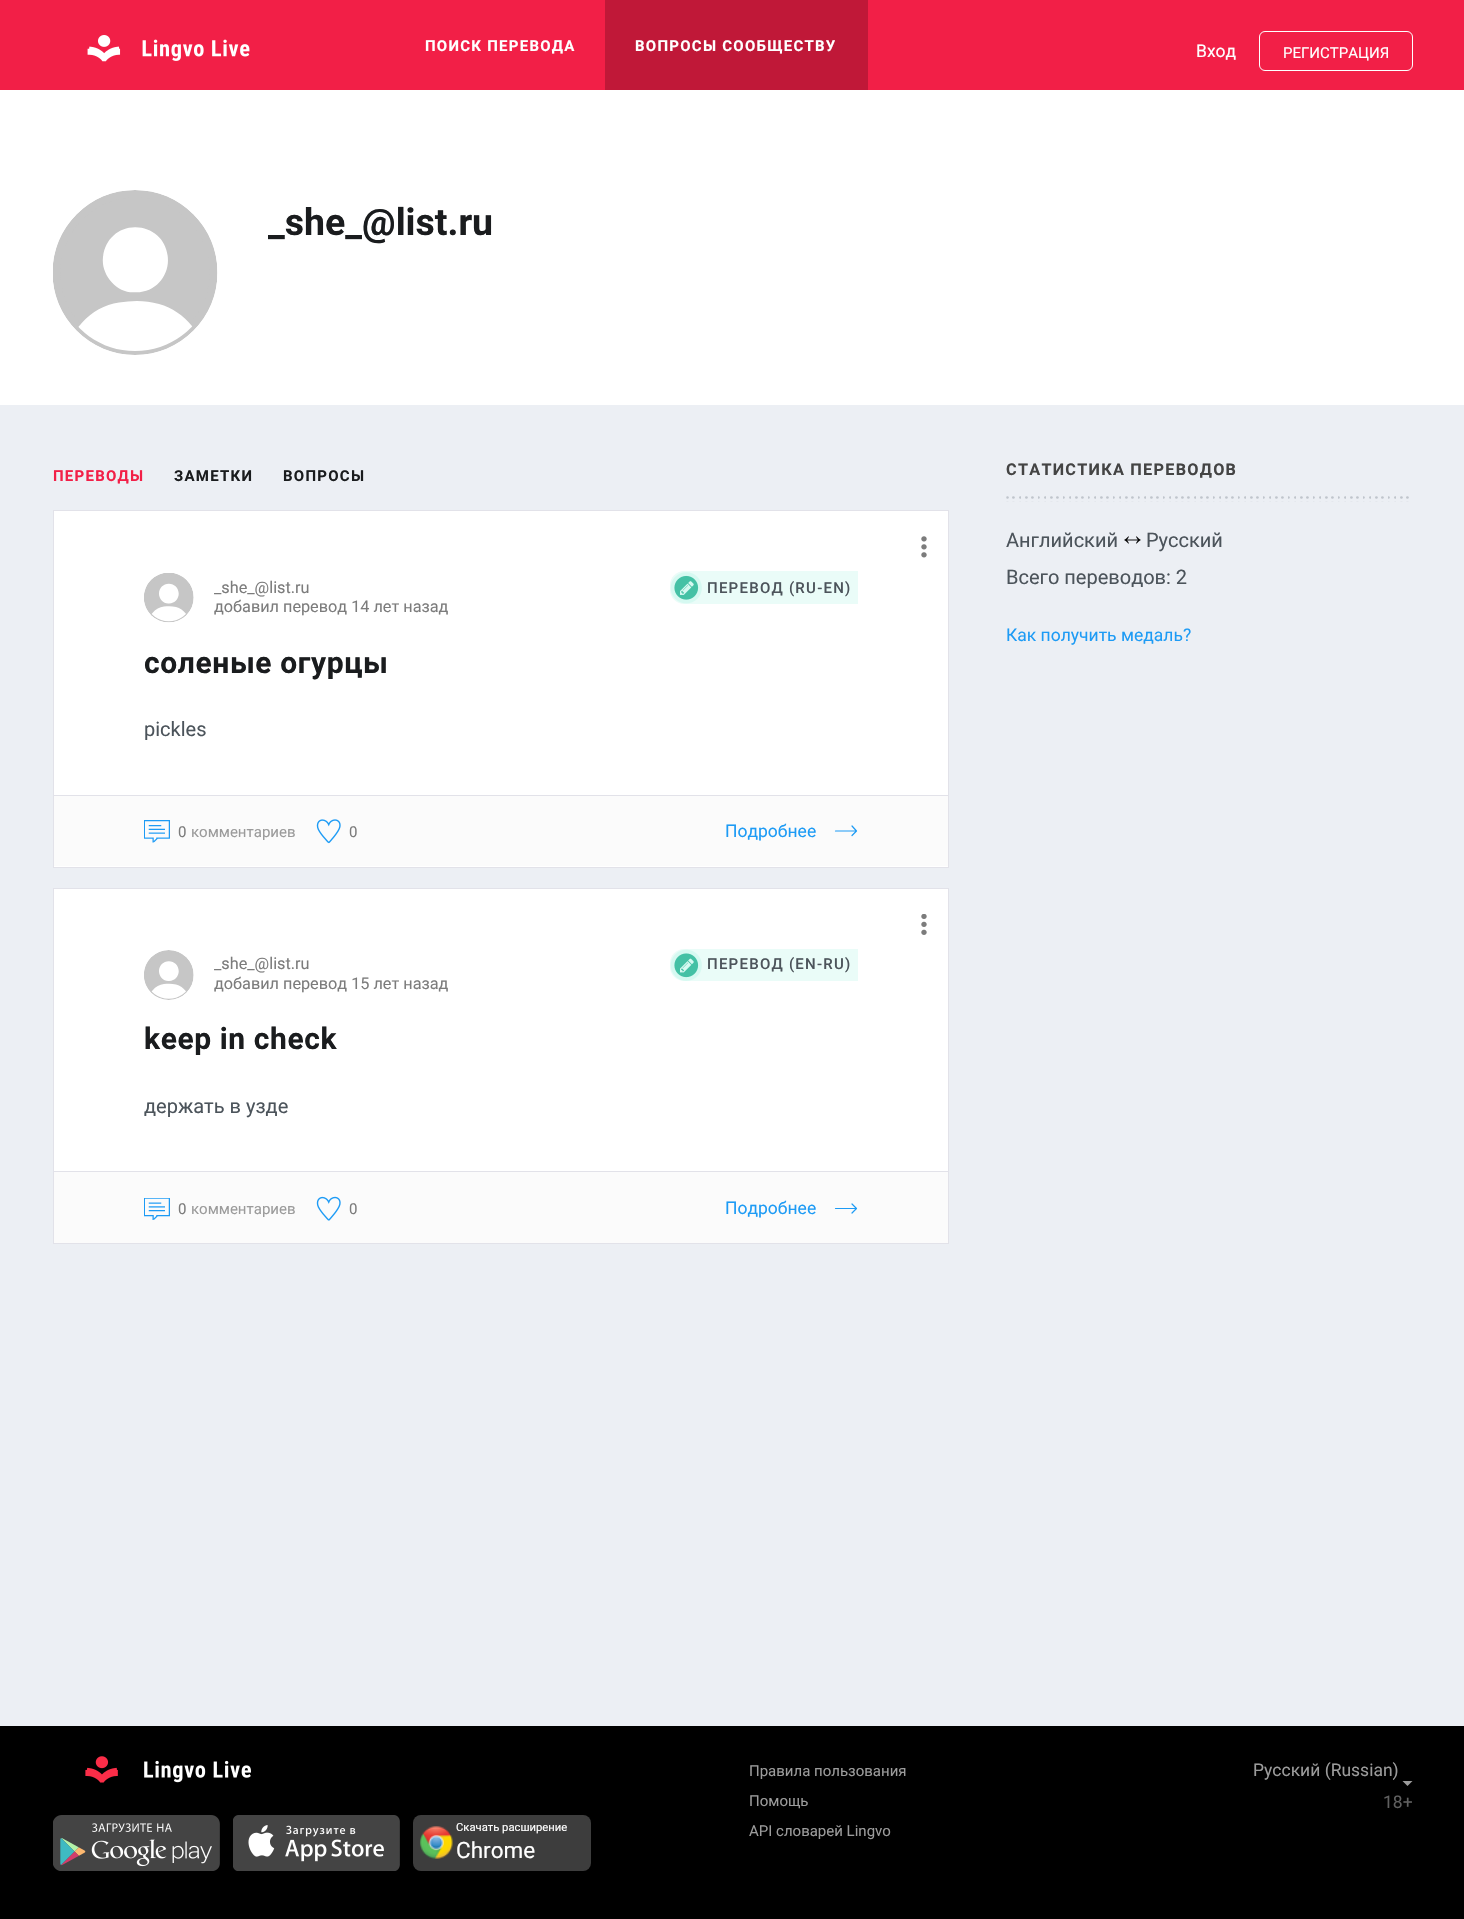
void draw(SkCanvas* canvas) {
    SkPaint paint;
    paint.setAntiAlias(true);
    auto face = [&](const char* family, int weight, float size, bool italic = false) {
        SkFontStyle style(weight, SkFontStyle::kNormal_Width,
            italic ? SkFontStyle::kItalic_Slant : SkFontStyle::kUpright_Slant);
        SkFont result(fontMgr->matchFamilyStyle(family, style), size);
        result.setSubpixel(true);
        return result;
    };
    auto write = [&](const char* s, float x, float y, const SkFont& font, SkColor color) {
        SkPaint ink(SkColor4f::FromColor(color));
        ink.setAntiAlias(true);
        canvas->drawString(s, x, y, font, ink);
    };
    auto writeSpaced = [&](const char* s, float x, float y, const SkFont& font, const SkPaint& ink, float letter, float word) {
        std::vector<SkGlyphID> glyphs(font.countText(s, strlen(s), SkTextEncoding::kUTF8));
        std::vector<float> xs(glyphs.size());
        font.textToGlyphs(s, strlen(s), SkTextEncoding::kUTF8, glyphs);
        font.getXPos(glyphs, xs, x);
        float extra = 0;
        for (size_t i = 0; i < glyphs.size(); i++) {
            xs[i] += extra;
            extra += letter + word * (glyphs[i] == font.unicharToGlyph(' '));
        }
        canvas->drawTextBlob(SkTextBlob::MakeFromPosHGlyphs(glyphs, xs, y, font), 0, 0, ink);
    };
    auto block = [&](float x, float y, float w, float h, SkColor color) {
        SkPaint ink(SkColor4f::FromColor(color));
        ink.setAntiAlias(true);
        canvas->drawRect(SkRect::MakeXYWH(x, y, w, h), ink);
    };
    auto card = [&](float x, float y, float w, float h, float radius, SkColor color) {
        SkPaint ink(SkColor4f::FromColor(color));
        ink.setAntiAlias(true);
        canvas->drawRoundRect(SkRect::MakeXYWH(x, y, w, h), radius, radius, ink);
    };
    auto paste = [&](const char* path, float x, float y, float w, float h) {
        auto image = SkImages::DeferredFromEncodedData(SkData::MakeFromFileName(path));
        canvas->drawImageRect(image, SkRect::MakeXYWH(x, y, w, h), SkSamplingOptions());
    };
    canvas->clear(SkColorSetRGB(236, 239, 244));
    block(0, 0, 1464, 90, SkColorSetRGB(242, 31, 71));
    paste("pic1.png", 87, 35, 163, 27);
    auto kFont1 = face("Roboto", 700, 15);
    paint.setColor(SK_ColorWHITE);
    writeSpaced("ПОИСК ПЕРЕВОДА", 425, 51, kFont1, paint, 1.25f, 0);
    block(605, 0, 263, 90, SkColorSetRGB(192, 24, 56));
    writeSpaced("ВОПРОСЫ СООБЩЕСТВУ", 635, 51, kFont1, paint, 1.25f, 0);
    auto kFont2 = face("Roboto", 400, 17.5f);
    write("Вход", 1196, 57, kFont2, SK_ColorWHITE);
    paint.setStyle(SkPaint::kStroke_Style);
    paint.setStrokeWidth(1);
    canvas->drawRoundRect(SkRect::MakeXYWH(1259.5f, 31.5f, 153, 39), 5.5f, 5.5f, paint);
    auto kFont3 = face("Roboto", 400, 15);
    write("РЕГИСТРАЦИЯ", 1283, 58, kFont3, SK_ColorWHITE);
    block(0, 90, 1464, 315, SK_ColorWHITE);
    paste("pic2.png", 53, 190, 165, 165);
    auto kFont4 = face("Roboto", 700, 37.5f);
    write("_she_@list.ru", 268, 235, kFont4, SkColorSetRGB(26, 28, 30));
    paint.setStyle(SkPaint::kFill_Style);
    paint.setColor(SkColorSetRGB(242, 31, 71));
    writeSpaced("ПЕРЕВОДЫ", 53, 481, kFont1, paint, 1.25f, 0);
    paint.setColor(SkColorSetRGB(26, 28, 30));
    writeSpaced("ЗАМЕТКИ", 174, 481, kFont1, paint, 1.25f, 0);
    writeSpaced("ВОПРОСЫ", 283, 481, kFont1, paint, 1.25f, 0);
    paint.setColor(SK_ColorWHITE);
    canvas->drawRect(SkRect::MakeXYWH(53.5f, 510.5f, 895, 357), paint);
    paint.setStyle(SkPaint::kStroke_Style);
    paint.setColor(SkColorSetRGB(226, 226, 233));
    canvas->drawRect(SkRect::MakeXYWH(53.5f, 510.5f, 895, 357), paint);
    paste("pic3.png", 921, 536, 6, 22);
    paste("pic4.png", 144, 573, 50, 50);
    auto kFont5 = face("Roboto", 400, 16.25f);
    write("_she_@list.ru", 214, 593, kFont5, SkColorSetRGB(124, 124, 124));
    write("добавил перевод 14 лет назад", 214, 612, kFont5, SkColorSetRGB(124, 124, 124));
    paint.setStyle(SkPaint::kFill_Style);
    paint.setColor(SkColorSetRGB(234, 252, 248));
    canvas->drawPath(SkPathBuilder().moveTo(684, 571).lineTo(858, 571).lineTo(858, 604).lineTo(684, 604).cubicTo(676.5f, 604, 670, 597.5f, 670, 590).lineTo(670, 585).cubicTo(670, 577.5f, 676.5f, 571, 684, 571).close().detach(), paint);
    paste("pic5.png", 670, 572, 32, 32);
    auto kFont6 = face("Roboto", 500, 15);
    paint.setColor(SkColorSetRGB(76, 84, 91));
    writeSpaced("ПЕРЕВОД (RU-EN)", 707, 593, kFont6, paint, 1.25f, 0);
    auto kFont7 = face("Roboto", 700, 30);
    paint.setColor(SkColorSetRGB(26, 28, 30));
    writeSpaced("соленые огурцы", 144, 673, kFont7, paint, 0.6f, 0);
    auto kFont8 = face("Roboto", 400, 20);
    write("pickles", 144, 736, kFont8, SkColorSetRGB(76, 84, 91));
    block(54, 796, 894, 70, SkColorSetRGB(251, 251, 251));
    block(54, 795, 894, 1, SkColorSetRGB(226, 226, 233));
    paste("pic6.png", 144, 820, 26, 23);
    paint.setColor(SkColorSetRGB(124, 124, 124));
    writeSpaced("0", 178, 837, kFont3, paint, 1.25f, 0);
    write("комментариев", 191, 837, kFont3, SkColorSetRGB(155, 155, 155));
    paste("pic7.png", 316, 819, 25, 25);
    writeSpaced("0", 349, 837, kFont3, paint, 1.25f, 0);
    write("Подробнее", 725, 837, kFont2, SkColorSetRGB(29, 155, 245));
    paint.setStyle(SkPaint::kStroke_Style);
    paint.setStrokeWidth(1.2f);
    paint.setStrokeCap(SkPaint::kRound_Cap);
    paint.setStrokeJoin(SkPaint::kRound_Join);
    paint.setColor(SkColorSetRGB(29, 155, 245));
    canvas->drawPath(SkPathBuilder().moveTo(852, 826).lineTo(856.5f, 831).lineTo(852, 835.5f).moveTo(856.5f, 831).lineTo(835.5f, 831).detach(), paint);
    block(54, 889, 894, 282, SK_ColorWHITE);
    paint.setStrokeWidth(1);
    paint.setStrokeCap(SkPaint::kButt_Cap);
    paint.setStrokeJoin(SkPaint::kMiter_Join);
    paint.setColor(SkColorSetRGB(226, 226, 233));
    canvas->drawRect(SkRect::MakeXYWH(53.5f, 888.5f, 895, 355), paint);
    paste("pic8.png", 921, 914, 6, 21);
    paste("pic9.png", 144, 950, 50, 50);
    write("_she_@list.ru", 214, 969, kFont5, SkColorSetRGB(124, 124, 124));
    write("добавил перевод 15 лет назад", 214, 989, kFont5, SkColorSetRGB(124, 124, 124));
    paint.setStyle(SkPaint::kFill_Style);
    paint.setColor(SkColorSetRGB(234, 252, 248));
    canvas->drawPath(SkPathBuilder().moveTo(684, 949).lineTo(858, 949).lineTo(858, 981).lineTo(684, 981).cubicTo(676.5f, 981, 670, 974.5f, 670, 967).lineTo(670, 963).cubicTo(670, 955.5f, 676.5f, 949, 684, 949).close().detach(), paint);
    paste("pic10.png", 670, 949, 32, 32);
    paint.setColor(SkColorSetRGB(76, 84, 91));
    writeSpaced("ПЕРЕВОД (EN-RU)", 707, 969, kFont6, paint, 1.25f, 0);
    paint.setColor(SkColorSetRGB(26, 28, 30));
    writeSpaced("keep in check", 144, 1049, kFont7, paint, 0.6f, 0);
    write("держать в узде", 144, 1113, kFont8, SkColorSetRGB(76, 84, 91));
    block(54, 1172, 894, 71, SkColorSetRGB(251, 251, 251));
    block(54, 1171, 894, 1, SkColorSetRGB(226, 226, 233));
    paste("pic11.png", 144, 1198, 26, 22);
    paint.setColor(SkColorSetRGB(124, 124, 124));
    writeSpaced("0", 178, 1214, kFont3, paint, 1.25f, 0);
    write("комментариев", 191, 1214, kFont3, SkColorSetRGB(155, 155, 155));
    paste("pic12.png", 316, 1196, 25, 25);
    writeSpaced("0", 349, 1214, kFont3, paint, 1.25f, 0);
    write("Подробнее", 725, 1214, kFont2, SkColorSetRGB(29, 155, 245));
    paint.setStyle(SkPaint::kStroke_Style);
    paint.setStrokeWidth(1.2f);
    paint.setStrokeCap(SkPaint::kRound_Cap);
    paint.setStrokeJoin(SkPaint::kRound_Join);
    paint.setColor(SkColorSetRGB(29, 155, 245));
    canvas->drawPath(SkPathBuilder().moveTo(852, 1204).lineTo(856.5f, 1208.5f).lineTo(852, 1213).moveTo(856.5f, 1208.5f).lineTo(835.5f, 1208.5f).detach(), paint);
    auto kFont9 = face("Roboto", 700, 16.25f);
    paint.setStyle(SkPaint::kFill_Style);
    paint.setColor(SkColorSetRGB(68, 68, 68));
    writeSpaced("СТАТИСТИКА ПЕРЕВОДОВ", 1006, 475, kFont9, paint, 1.25f, 0);
    paste("pic13.png", 1006, 496, 403, 6);
    write("Английский", 1006, 547, kFont8, SkColorSetRGB(76, 84, 91));
    paste("pic14.png", 1124, 536, 17, 8);
    write("Русский", 1146, 547, kFont8, SkColorSetRGB(76, 84, 91));
    write("Всего переводов: 2", 1006, 584, kFont8, SkColorSetRGB(76, 84, 91));
    write("Как получить медаль?", 1006, 641, kFont2, SkColorSetRGB(29, 155, 245));
    block(0, 1726, 1464, 193, SK_ColorBLACK);
    paste("pic15.png", 85, 1756, 166, 27);
    paste("pic16.png", 53, 1815, 167, 56);
    paste("pic17.png", 233, 1815, 167, 56);
    card(413, 1815, 178, 56, 8, SkColorSetRGB(61, 61, 61));
    paste("pic18.png", 420, 1826, 33, 33);
    auto kFont10 = face("Roboto", 400, 11.25f);
    write("Скачать расширение", 456, 1831, kFont10, SK_ColorWHITE);
    auto kFont11 = face("Roboto", 400, 22.5f);
    write("Chrome", 456, 1858, kFont11, SK_ColorWHITE);
    write("Правила пользования", 749, 1776, kFont3, SkColorSetRGB(155, 155, 155));
    write("Помощь", 749, 1806, kFont3, SkColorSetRGB(155, 155, 155));
    write("API словарей Lingvo", 749, 1836, kFont3, SkColorSetRGB(155, 155, 155));
    write("Русский (Russian)", 1253, 1776, kFont2, SkColorSetRGB(155, 155, 155));
    paint.setColor(SkColorSetRGB(155, 155, 155));
    canvas->drawPath(SkPathBuilder().moveTo(1402.5f, 1781).lineTo(1412.5f, 1781).lineTo(1407.5f, 1786).close().detach(), paint);
    write("18+", 1383, 1808, kFont2, SkColorSetRGB(96, 96, 96));
}
